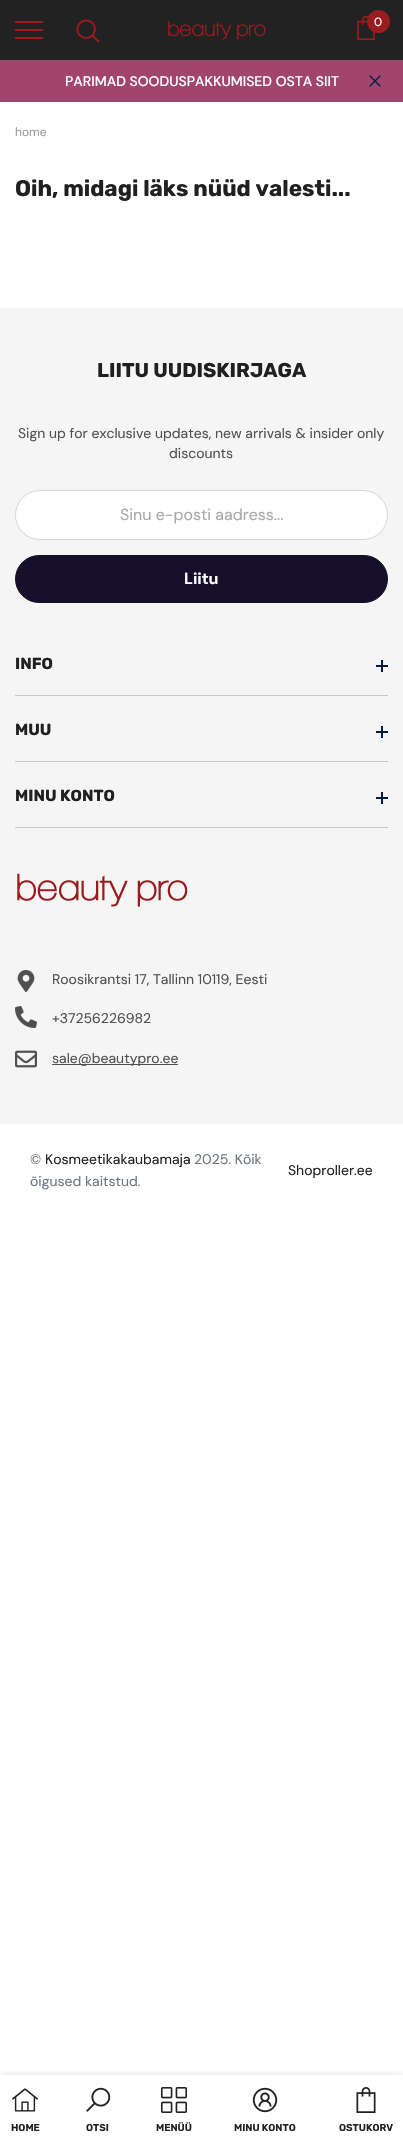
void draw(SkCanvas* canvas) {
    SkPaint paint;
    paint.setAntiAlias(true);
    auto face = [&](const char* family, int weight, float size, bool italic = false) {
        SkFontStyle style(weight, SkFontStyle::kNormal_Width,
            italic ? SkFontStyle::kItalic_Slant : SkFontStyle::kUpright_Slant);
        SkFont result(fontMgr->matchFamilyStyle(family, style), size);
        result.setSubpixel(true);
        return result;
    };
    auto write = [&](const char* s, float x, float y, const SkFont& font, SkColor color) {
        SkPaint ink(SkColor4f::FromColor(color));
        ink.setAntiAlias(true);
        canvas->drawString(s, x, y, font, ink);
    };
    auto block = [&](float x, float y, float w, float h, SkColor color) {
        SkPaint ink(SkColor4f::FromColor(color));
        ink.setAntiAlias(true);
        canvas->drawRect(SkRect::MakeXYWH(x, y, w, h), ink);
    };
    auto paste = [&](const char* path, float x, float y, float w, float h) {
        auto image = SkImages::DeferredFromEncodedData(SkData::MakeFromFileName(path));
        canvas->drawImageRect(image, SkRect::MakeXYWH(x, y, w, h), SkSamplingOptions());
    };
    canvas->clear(SK_ColorWHITE);
    block(0, 0, 403, 60, SkColorSetRGB(34, 34, 34));
    block(15, 29, 28, 2, SkColorSetRGB(155, 28, 30));
    block(15, 21, 28, 2, SkColorSetRGB(155, 28, 30));
    block(15, 37, 28, 2, SkColorSetRGB(155, 28, 30));
    paste("pic1.png", 76, 19, 24, 24);
    paste("pic2.png", 168, 20, 98, 20);
    paste("pic3.png", 357, 16, 18, 24);
    paint.setColor(SkColorSetRGB(155, 28, 30));
    canvas->drawCircle(378.5f, 21.5f, 11.5f, paint);
    auto kFont1 = face("DM Sans", 400, 12);
    write("0", 374, 26, kFont1, SK_ColorWHITE);
    block(0, 60, 403, 42, SkColorSetRGB(161, 69, 109));
    auto kFont2 = face("DM Sans", 500, 14);
    write("PARIMAD SOODUSPAKKUMISED OSTA SIIT", 65, 86, kFont2, SK_ColorWHITE);
    paste("pic4.png", 369, 75, 12, 12);
    write("home", 15, 136, kFont1, SkColorSetRGB(153, 153, 153));
    auto kFont3 = face("Rubik", 700, 22.5f);
    write("Oih, midagi läks nüüd valesti...", 15, 196, kFont3, SkColorSetRGB(32, 32, 32));
    block(0, 308, 403, 816, SkColorSetRGB(245, 245, 245));
    auto kFont4 = face("Rubik", 700, 20);
    write("LIITU UUDISKIRJAGA", 97, 377, kFont4, SkColorSetRGB(32, 32, 32));
    auto kFont5 = face("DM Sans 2", 400, 14);
    write("Sign up for exclusive updates, new arrivals & insider only", 18, 438, kFont5, SkColorSetRGB(80, 80, 80));
    write("discounts", 169, 458, kFont5, SkColorSetRGB(80, 80, 80));
    paint.setColor(SK_ColorWHITE);
    canvas->drawRoundRect(SkRect::MakeXYWH(15.5f, 490.5f, 372, 49), 24.5f, 24.5f, paint);
    paint.setStyle(SkPaint::kStroke_Style);
    paint.setStrokeWidth(1);
    paint.setColor(SkColorSetRGB(213, 213, 213));
    canvas->drawRoundRect(SkRect::MakeXYWH(15.5f, 490.5f, 372, 49), 24.5f, 24.5f, paint);
    auto kFont6 = face("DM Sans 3", 400, 16);
    write("Sinu e-posti aadress...", 120, 520, kFont6, SkColorSetRGB(168, 168, 168));
    paint.setStyle(SkPaint::kFill_Style);
    paint.setColor(SkColorSetRGB(22, 15, 41));
    canvas->drawRoundRect(SkRect::MakeXYWH(15.5f, 555.5f, 372, 47), 23.5f, 23.5f, paint);
    paint.setStyle(SkPaint::kStroke_Style);
    canvas->drawRoundRect(SkRect::MakeXYWH(15.5f, 555.5f, 372, 47), 23.5f, 23.5f, paint);
    auto kFont7 = face("DM Sans", 700, 16);
    write("Liitu", 184, 584, kFont7, SK_ColorWHITE);
    block(15, 695, 373, 1, SkColorSetRGB(199, 199, 199));
    auto kFont8 = face("Rubik", 700, 16);
    write("INFO", 15, 669, kFont8, SkColorSetRGB(32, 32, 32));
    block(381, 660, 2, 12, SkColorSetRGB(5, 28, 66));
    block(376, 665, 12, 2, SkColorSetRGB(5, 28, 66));
    block(15, 761, 373, 1, SkColorSetRGB(199, 199, 199));
    write("MUU", 15, 735, kFont8, SkColorSetRGB(32, 32, 32));
    block(381, 726, 2, 12, SkColorSetRGB(5, 28, 66));
    block(376, 731, 12, 2, SkColorSetRGB(5, 28, 66));
    block(15, 827, 373, 1, SkColorSetRGB(199, 199, 199));
    write("MINU KONTO", 15, 801, kFont8, SkColorSetRGB(32, 32, 32));
    block(381, 792, 2, 12, SkColorSetRGB(5, 28, 66));
    block(376, 797, 12, 2, SkColorSetRGB(5, 28, 66));
    paste("pic5.png", 17, 873, 171, 34);
    paste("pic6.png", 17, 970, 18, 22);
    write("Roosikrantsi 17, Tallinn 10119, Eesti", 52, 984, kFont5, SkColorSetRGB(80, 80, 80));
    paste("pic7.png", 15, 1006, 22, 22);
    write("+37256226982", 52, 1023, kFont5, SkColorSetRGB(80, 80, 80));
    paste("pic8.png", 15, 1050, 22, 18);
    block(52, 1064, 126, 1, SkColorSetRGB(80, 80, 80));
    write("sale@beautypro.ee", 52, 1063, kFont5, SkColorSetRGB(80, 80, 80));
    write("©", 30, 1164, kFont5, SkColorSetRGB(108, 117, 125));
    write("Kosmeetikakaubamaja", 45, 1164, kFont5, SkColorSetRGB(32, 32, 32));
    write("2025. Kõik", 194, 1164, kFont5, SkColorSetRGB(108, 117, 125));
    write("õigused kaitstud.", 30, 1186, kFont5, SkColorSetRGB(108, 117, 125));
    write("Shoproller.ee", 288, 1175, kFont5, SkColorSetRGB(32, 32, 32));
    canvas->save();
    canvas->clipRect(SkRect::MakeXYWH(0, 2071, 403, 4));
    paint.setStyle(SkPaint::kFill_Style);
    paint.setColor(SkColorSetARGB(31, 0, 0, 0));
    paint.setMaskFilter(SkMaskFilter::MakeBlur(kNormal_SkBlurStyle, 4.5f));
    canvas->drawRect(SkRect::MakeXYWH(0, 2075, 403, 69), paint);
    paint.setMaskFilter(nullptr);
    canvas->restore();
    paste("pic9.png", 12, 2088, 26, 24);
    auto kFont9 = face("Rubik", 600, 10);
    write("HOME", 11, 2131, kFont9, SkColorSetRGB(32, 32, 32));
    paste("pic10.png", 86, 2087, 25, 25);
    write("OTSI", 86, 2131, kFont9, SkColorSetRGB(32, 32, 32));
    paste("pic11.png", 161, 2087, 26, 26);
    write("MENÜÜ", 156, 2131, kFont9, SkColorSetRGB(32, 32, 32));
    paste("pic12.png", 252, 2087, 26, 26);
    write("MINU KONTO", 234, 2131, kFont9, SkColorSetRGB(32, 32, 32));
    paste("pic13.png", 356, 2087, 20, 26);
    write("OSTUKORV", 339, 2131, kFont9, SkColorSetRGB(32, 32, 32));
}
